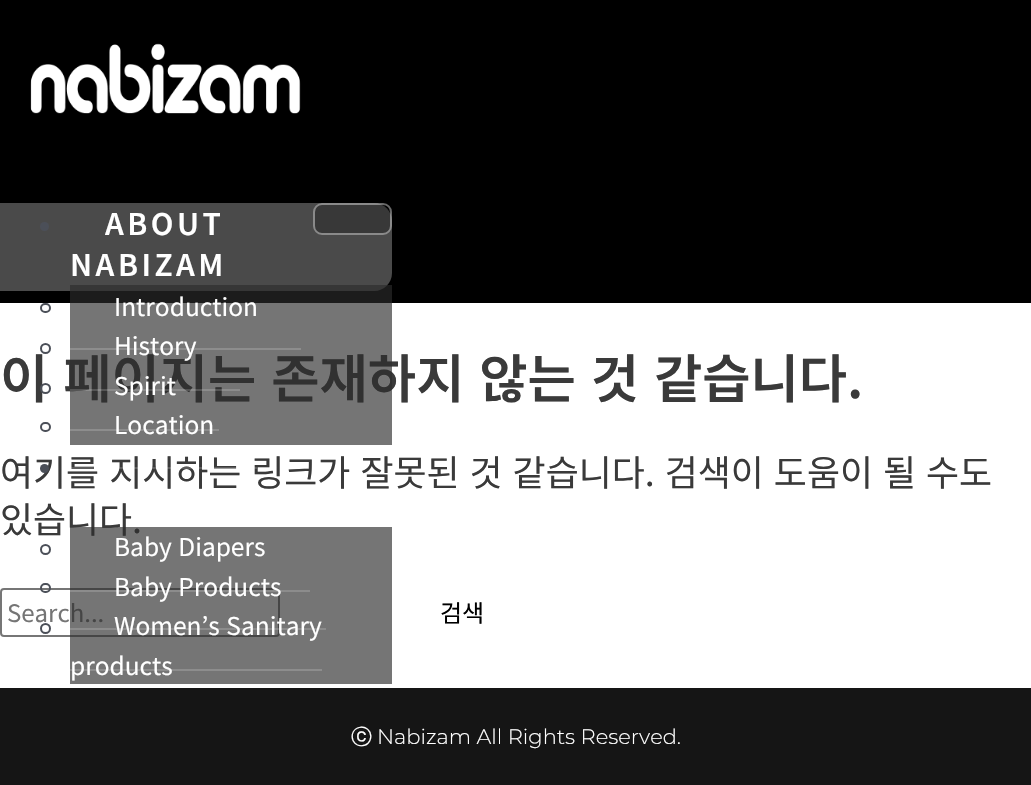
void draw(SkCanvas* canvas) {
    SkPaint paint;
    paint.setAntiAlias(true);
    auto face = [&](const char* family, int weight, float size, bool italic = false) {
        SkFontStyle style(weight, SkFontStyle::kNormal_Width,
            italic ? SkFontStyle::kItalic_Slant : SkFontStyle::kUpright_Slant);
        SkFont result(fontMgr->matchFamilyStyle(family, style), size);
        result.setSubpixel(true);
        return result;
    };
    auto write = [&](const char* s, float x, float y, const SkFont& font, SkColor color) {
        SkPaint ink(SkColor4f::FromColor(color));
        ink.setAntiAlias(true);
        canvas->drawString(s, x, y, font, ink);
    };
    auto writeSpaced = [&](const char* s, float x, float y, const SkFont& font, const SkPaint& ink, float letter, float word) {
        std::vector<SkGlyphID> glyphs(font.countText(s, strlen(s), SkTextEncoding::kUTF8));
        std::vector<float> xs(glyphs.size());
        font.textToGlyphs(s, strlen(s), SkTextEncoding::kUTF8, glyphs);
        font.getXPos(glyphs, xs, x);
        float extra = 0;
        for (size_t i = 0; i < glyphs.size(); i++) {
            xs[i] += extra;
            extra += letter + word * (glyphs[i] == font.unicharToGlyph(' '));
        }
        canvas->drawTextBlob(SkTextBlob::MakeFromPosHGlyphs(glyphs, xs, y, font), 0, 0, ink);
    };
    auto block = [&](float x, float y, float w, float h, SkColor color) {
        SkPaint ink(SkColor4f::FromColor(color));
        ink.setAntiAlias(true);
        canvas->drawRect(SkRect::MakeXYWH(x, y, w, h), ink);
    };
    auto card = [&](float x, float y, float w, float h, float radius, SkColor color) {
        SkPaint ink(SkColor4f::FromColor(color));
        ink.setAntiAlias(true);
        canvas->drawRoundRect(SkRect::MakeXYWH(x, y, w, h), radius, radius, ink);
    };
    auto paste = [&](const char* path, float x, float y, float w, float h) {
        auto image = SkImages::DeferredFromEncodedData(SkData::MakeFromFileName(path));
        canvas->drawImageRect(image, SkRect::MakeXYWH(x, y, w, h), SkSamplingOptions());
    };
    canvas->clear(SK_ColorWHITE);
    block(0, 0, 1031, 303, SK_ColorBLACK);
    paste("pic1.png", 30, 43, 271, 71);
    paint.setColor(SkColorSetRGB(74, 74, 74));
    canvas->drawPath(SkPathBuilder().moveTo(0, 203).lineTo(374, 203).cubicTo(384, 203, 392, 211, 392, 221).lineTo(392, 273).cubicTo(392, 283, 384, 291, 374, 291).lineTo(0, 291).close().detach(), paint);
    paint.setColor(SkColorSetRGB(75, 79, 88));
    canvas->drawCircle(44.5f, 226.5f, 4.5f, paint);
    auto kFont1 = face("Noto Sans KR", 600, 29.75f);
    paint.setColor(SK_ColorWHITE);
    writeSpaced("ABOUT", 105, 235, kFont1, paint, 3.5f, 0);
    writeSpaced("NABIZAM", 70, 276, kFont1, paint, 3.5f, 0);
    auto kFont2 = face("Noto Sans KR", 600, 52.5f);
    paint.setColor(SkColorSetRGB(58, 58, 58));
    writeSpaced("이 페이지는 존재하지 않는 것 같습니다.", 0, 398, kFont2, paint, 0, 3);
    block(70, 285, 322, 160, SkColorSetARGB(166, 43, 43, 43));
    paint.setStyle(SkPaint::kStroke_Style);
    paint.setStrokeWidth(2);
    paint.setColor(SkColorSetRGB(75, 79, 88));
    canvas->drawRoundRect(SkRect::MakeXYWH(41, 304, 9, 8), 4, 4, paint);
    auto kFont3 = face("Noto Sans KR", 400, 24.5f);
    write("Introduction", 114, 316, kFont3, SK_ColorWHITE);
    block(70, 348, 231, 2, SkColorSetRGB(141, 141, 141));
    canvas->drawCircle(45.5f, 348.5f, 4.5f, paint);
    write("History", 114, 355, kFont3, SK_ColorWHITE);
    block(70, 389, 170, 2, SkColorSetARGB(43, 255, 255, 255));
    canvas->drawCircle(45.5f, 388.5f, 4.5f, paint);
    write("Spirit", 114, 395, kFont3, SK_ColorWHITE);
    block(70, 429, 149, 2, SkColorSetRGB(141, 141, 141));
    canvas->drawRoundRect(SkRect::MakeXYWH(41, 423, 9, 8), 4, 4, paint);
    write("Location", 114, 434, kFont3, SK_ColorWHITE);
    auto kFont4 = face("Noto Sans KR", 400, 35.9f);
    paint.setStyle(SkPaint::kFill_Style);
    paint.setColor(SkColorSetRGB(58, 58, 58));
    writeSpaced("여기를 지시하는 링크가 잘못된 것 같습니다. 검색이 도움이 될 수도", 0, 486, kFont4, paint, 0, 2);
    block(70, 467, 187, 2, SkColorSetARGB(43, 255, 255, 255));
    paint.setColor(SkColorSetRGB(75, 79, 88));
    canvas->drawCircle(44.5f, 468.5f, 4.5f, paint);
    write("있습니다.", 0, 533, kFont4, SkColorSetRGB(58, 58, 58));
    paint.setStyle(SkPaint::kStroke_Style);
    paint.setColor(SkColorSetRGB(118, 118, 118));
    canvas->drawRoundRect(SkRect::MakeXYWH(1, 589, 278, 47), 3, 3, paint);
    auto kFont5 = face("Noto Sans KR", 400, 24);
    write("Search...", 7, 622, kFont5, SkColorSetRGB(117, 117, 117));
    block(70, 527, 322, 157, SkColorSetARGB(166, 43, 43, 43));
    paint.setColor(SkColorSetRGB(75, 79, 88));
    canvas->drawCircle(45.5f, 549.5f, 4.5f, paint);
    paint.setStyle(SkPaint::kFill_Style);
    paint.setColor(SK_ColorWHITE);
    writeSpaced("Baby Diapers", 114, 556, kFont3, paint, 0, 1);
    block(70, 590, 240, 2, SkColorSetARGB(43, 255, 255, 255));
    paint.setStyle(SkPaint::kStroke_Style);
    paint.setColor(SkColorSetRGB(75, 79, 88));
    canvas->drawRoundRect(SkRect::MakeXYWH(41, 584, 9, 8), 4, 4, paint);
    paint.setStyle(SkPaint::kFill_Style);
    paint.setColor(SK_ColorWHITE);
    writeSpaced("Baby Products", 114, 596, kFont3, paint, 0, 1);
    block(70, 628, 256, 2, SkColorSetARGB(43, 255, 255, 255));
    paint.setStyle(SkPaint::kStroke_Style);
    paint.setColor(SkColorSetRGB(75, 79, 88));
    canvas->drawCircle(45.5f, 628.5f, 4.5f, paint);
    paint.setStyle(SkPaint::kFill_Style);
    paint.setColor(SK_ColorWHITE);
    writeSpaced("Women’s Sanitary", 114, 635, kFont3, paint, 0, 1);
    block(70, 669, 252, 2, SkColorSetRGB(141, 141, 141));
    write("products", 70, 675, kFont3, SK_ColorWHITE);
    card(313, 203, 79, 32, 9, SkColorSetARGB(64, 0, 0, 0));
    paint.setStyle(SkPaint::kStroke_Style);
    paint.setColor(SkColorSetARGB(105, 255, 255, 255));
    canvas->drawRoundRect(SkRect::MakeXYWH(314, 204, 77, 30), 8, 8, paint);
    write("검색", 440, 622, kFont5, SK_ColorBLACK);
    block(0, 688, 1031, 97, SkColorSetRGB(21, 21, 21));
    auto kFont6 = face("WenQuanYi Zen Hei", 500, 21);
    write("ⓒ", 351, 744, kFont6, SK_ColorWHITE);
    auto kFont7 = face("Montserrat", 300, 21);
    write("Nabizam All Rights Reserved.", 377, 744, kFont7, SK_ColorWHITE);
}
